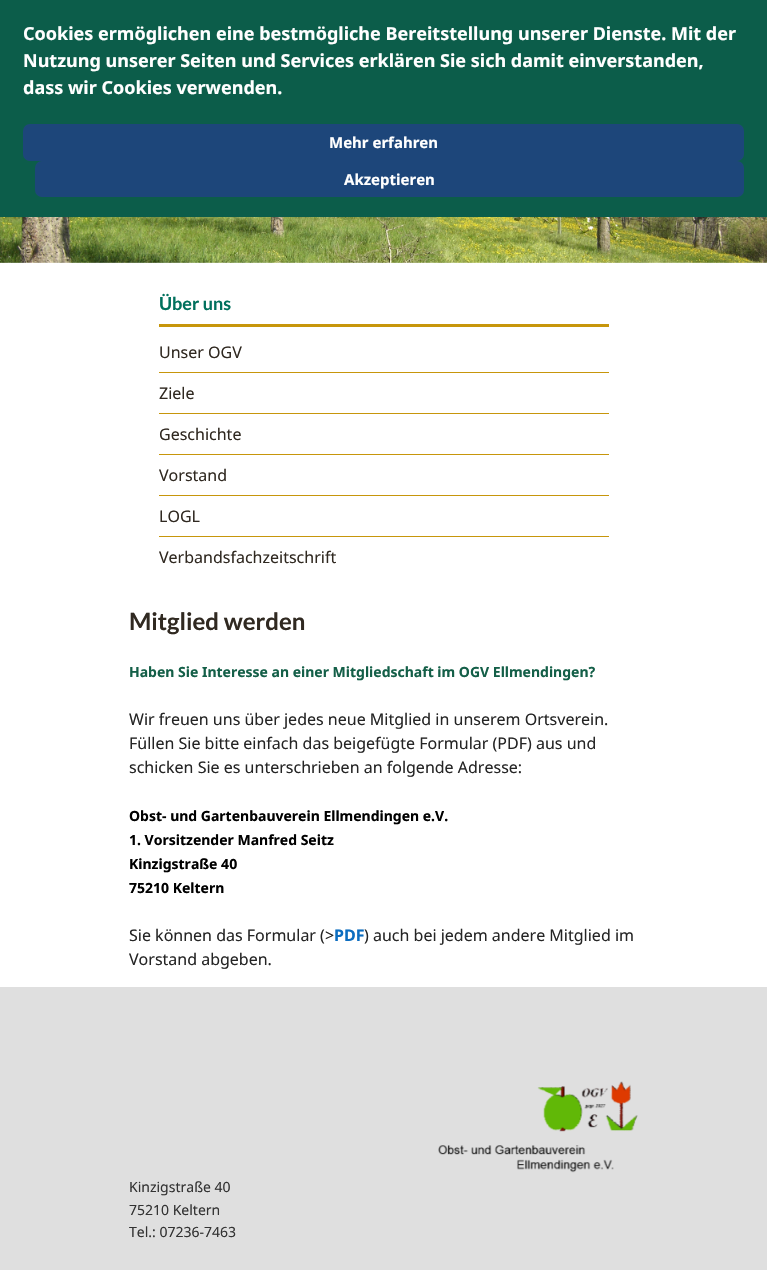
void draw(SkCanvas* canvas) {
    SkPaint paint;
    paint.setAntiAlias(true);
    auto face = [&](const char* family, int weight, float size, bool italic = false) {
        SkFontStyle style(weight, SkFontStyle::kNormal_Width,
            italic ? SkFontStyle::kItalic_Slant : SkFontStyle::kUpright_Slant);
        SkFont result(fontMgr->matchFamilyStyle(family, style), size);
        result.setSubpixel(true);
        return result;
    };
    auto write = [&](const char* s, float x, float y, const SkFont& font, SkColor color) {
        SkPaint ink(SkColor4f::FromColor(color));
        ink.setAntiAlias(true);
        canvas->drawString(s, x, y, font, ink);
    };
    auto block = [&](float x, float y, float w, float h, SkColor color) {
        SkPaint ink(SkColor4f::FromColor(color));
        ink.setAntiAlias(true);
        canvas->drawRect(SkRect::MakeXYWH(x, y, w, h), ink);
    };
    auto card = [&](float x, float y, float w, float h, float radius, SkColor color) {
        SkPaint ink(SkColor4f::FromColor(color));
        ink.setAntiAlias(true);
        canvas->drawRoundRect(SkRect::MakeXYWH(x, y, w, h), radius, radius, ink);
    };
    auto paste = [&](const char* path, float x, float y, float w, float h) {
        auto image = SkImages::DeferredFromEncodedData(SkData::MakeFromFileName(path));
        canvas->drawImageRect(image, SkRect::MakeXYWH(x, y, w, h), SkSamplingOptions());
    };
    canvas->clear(SK_ColorWHITE);
    block(0, 0, 767, 217, SkColorSetRGB(12, 93, 74));
    auto kFont1 = face("Noto Sans", 700, 18);
    write("Cookies ermöglichen eine bestmögliche Bereitstellung unserer Dienste. Mit der", 23, 40, kFont1, SK_ColorWHITE);
    write("Nutzung unserer Seiten und Services erklären Sie sich damit einverstanden,", 23, 67, kFont1, SK_ColorWHITE);
    write("dass wir Cookies verwenden.", 23, 94, kFont1, SK_ColorWHITE);
    card(23, 124, 721, 37, 7, SkColorSetRGB(29, 70, 122));
    auto kFont2 = face("Noto Sans", 700, 15);
    write("Mehr erfahren", 329, 148, kFont2, SK_ColorWHITE);
    card(35, 161, 709, 36, 7, SkColorSetRGB(29, 70, 122));
    write("Akzeptieren", 344, 185, kFont2, SK_ColorWHITE);
    paste("pic1.png", 0, 217, 767, 46);
    block(159, 324, 450, 3, SkColorSetRGB(199, 150, 11));
    auto kFont3 = face("Lato", 700, 18);
    write("Über uns", 159, 310, kFont3, SkColorSetRGB(0, 112, 93));
    block(159, 372, 450, 1, SkColorSetRGB(199, 150, 11));
    auto kFont4 = face("Noto Sans", 400, 16);
    write("Unser OGV", 159, 358, kFont4, SkColorSetRGB(48, 41, 33));
    block(159, 413, 450, 1, SkColorSetRGB(199, 150, 11));
    write("Ziele", 159, 399, kFont4, SkColorSetRGB(48, 41, 33));
    block(159, 454, 450, 1, SkColorSetRGB(199, 150, 11));
    write("Geschichte", 159, 440, kFont4, SkColorSetRGB(48, 41, 33));
    block(159, 495, 450, 1, SkColorSetRGB(199, 150, 11));
    write("Vorstand", 159, 481, kFont4, SkColorSetRGB(48, 41, 33));
    block(159, 536, 450, 1, SkColorSetRGB(199, 150, 11));
    write("LOGL", 159, 522, kFont4, SkColorSetRGB(48, 41, 33));
    write("Verbandsfachzeitschrift", 159, 563, kFont4, SkColorSetRGB(48, 41, 33));
    auto kFont5 = face("Lato", 700, 24);
    write("Mitglied werden", 129, 630, kFont5, SkColorSetRGB(48, 41, 33));
    auto kFont6 = face("Noto Sans", 700, 14);
    write("Haben Sie Interesse an einer Mitgliedschaft im OGV Ellmendingen?", 129, 677, kFont6, SkColorSetRGB(20, 95, 72));
    write("Wir freuen uns über jedes neue Mitglied in unserem Ortsverein.", 129, 725, kFont4, SkColorSetRGB(37, 37, 37));
    write("Füllen Sie bitte einfach das beigefügte Formular (PDF) aus und", 129, 749, kFont4, SkColorSetRGB(37, 37, 37));
    write("schicken Sie es unterschrieben an folgende Adresse:", 129, 773, kFont4, SkColorSetRGB(37, 37, 37));
    write("Obst- und Gartenbauverein Ellmendingen e.V.", 129, 821, kFont6, SK_ColorBLACK);
    write("1. Vorsitzender Manfred Seitz", 129, 845, kFont6, SK_ColorBLACK);
    write("Kinzigstraße 40", 129, 869, kFont6, SK_ColorBLACK);
    write("75210 Keltern", 129, 893, kFont6, SK_ColorBLACK);
    write("Sie können das Formular (>", 129, 941, kFont4, SkColorSetRGB(37, 37, 37));
    auto kFont7 = face("Noto Sans", 700, 16);
    write("PDF", 334, 941, kFont7, SkColorSetRGB(12, 109, 192));
    write(") auch bei jedem andere Mitglied im", 364, 941, kFont4, SkColorSetRGB(37, 37, 37));
    write("Vorstand abgeben.", 129, 965, kFont4, SkColorSetRGB(37, 37, 37));
    block(0, 987, 767, 283, SkColorSetRGB(223, 223, 223));
    paste("pic2.png", 438, 1081, 200, 92);
    auto kFont8 = face("Noto Sans", 400, 14);
    write("Kinzigstraße 40", 129, 1192, kFont8, SkColorSetRGB(51, 51, 51));
    write("75210 Keltern", 129, 1215, kFont8, SkColorSetRGB(51, 51, 51));
    write("Tel.: 07236-7463", 129, 1237, kFont8, SkColorSetRGB(51, 51, 51));
}
